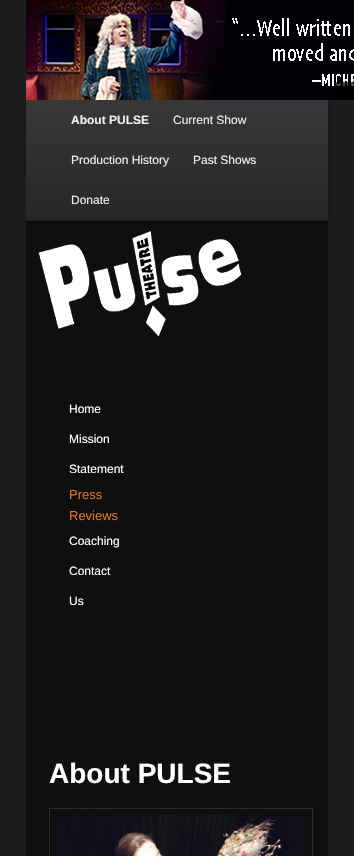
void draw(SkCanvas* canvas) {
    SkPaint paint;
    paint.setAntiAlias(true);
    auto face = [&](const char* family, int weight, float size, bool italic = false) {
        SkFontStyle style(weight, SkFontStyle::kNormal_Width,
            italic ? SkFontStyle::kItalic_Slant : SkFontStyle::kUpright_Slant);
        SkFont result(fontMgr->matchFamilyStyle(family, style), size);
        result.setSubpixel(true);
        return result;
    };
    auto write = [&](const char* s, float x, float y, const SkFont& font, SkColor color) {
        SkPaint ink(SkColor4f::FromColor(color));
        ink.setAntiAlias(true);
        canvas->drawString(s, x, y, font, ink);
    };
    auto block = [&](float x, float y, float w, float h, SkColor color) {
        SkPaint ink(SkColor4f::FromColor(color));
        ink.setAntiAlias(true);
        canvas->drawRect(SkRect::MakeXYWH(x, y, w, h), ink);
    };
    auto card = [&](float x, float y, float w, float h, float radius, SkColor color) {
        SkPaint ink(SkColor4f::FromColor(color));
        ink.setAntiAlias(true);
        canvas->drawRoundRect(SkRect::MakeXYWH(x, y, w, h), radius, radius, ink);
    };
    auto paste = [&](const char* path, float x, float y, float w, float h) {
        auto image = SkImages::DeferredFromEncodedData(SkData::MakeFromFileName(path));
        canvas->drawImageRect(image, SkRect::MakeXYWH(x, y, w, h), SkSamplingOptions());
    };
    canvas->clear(SkColorSetRGB(29, 29, 29));
    block(26, 221, 302, 635, SkColorSetRGB(15, 15, 15));
    paint.setColor(SkColorSetARGB(102, 0, 0, 0));
    paint.setMaskFilter(SkMaskFilter::MakeBlur(kNormal_SkBlurStyle, 1));
    canvas->drawRect(SkRect::MakeXYWH(26, 101, 302, 121), paint);
    paint.setMaskFilter(nullptr);
    paste("pic1.png", 26, 0, 328, 100);
    card(335, 82, 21, 18, 2, SkColorSetARGB(179, 0, 0, 0));
    {
        const SkColor colors[] = {SkColorSetRGB(56, 56, 56), SkColorSetRGB(39, 39, 39)};
        const float stops[] = {0, 1};
        const SkPoint ends[] = {{177, 100}, {177, 220}};
        paint.setShader(SkGradientShader::MakeLinear(ends, colors, stops, 2, SkTileMode::kClamp));
        paint.setAlpha(255);
    }
    canvas->drawRect(SkRect::MakeXYWH(26, 100, 302, 120), paint);
    block(26, 220, 302, 1, SkColorSetRGB(34, 34, 34));
    auto kFont1 = face("Liberation Sans", 700, 12);
    write("About PULSE", 71, 124, kFont1, SkColorSetRGB(238, 238, 238));
    auto kFont2 = face("Liberation Sans", 400, 12);
    write("Current Show", 173, 124, kFont2, SkColorSetRGB(238, 238, 238));
    write("Production History", 71, 164, kFont2, SkColorSetRGB(238, 238, 238));
    write("Past Shows", 193, 164, kFont2, SkColorSetRGB(238, 238, 238));
    write("Donate", 71, 204, kFont2, SkColorSetRGB(238, 238, 238));
    paste("pic2.png", 38, 231, 204, 106);
    write("Home", 69, 413, kFont2, SK_ColorWHITE);
    write("Mission", 69, 443, kFont2, SK_ColorWHITE);
    write("Statement", 69, 473, kFont2, SK_ColorWHITE);
    auto kFont3 = face("Liberation Sans", 400, 13);
    write("Press", 69, 499, kFont3, SkColorSetRGB(228, 116, 31));
    write("Reviews", 69, 520, kFont3, SkColorSetRGB(228, 116, 31));
    write("Coaching", 69, 545, kFont2, SK_ColorWHITE);
    write("Contact", 69, 575, kFont2, SK_ColorWHITE);
    write("Us", 69, 605, kFont2, SK_ColorWHITE);
    auto kFont4 = face("Liberation Sans", 700, 28);
    write("About PULSE", 49, 783, kFont4, SK_ColorWHITE);
    paint.setStyle(SkPaint::kStroke_Style);
    paint.setStrokeWidth(1);
    paint.setShader(nullptr);
    paint.setColor(SkColorSetRGB(44, 44, 44));
    canvas->drawRect(SkRect::MakeXYWH(49.5f, 808.5f, 263, 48), paint);
    paste("pic3.png", 56, 815, 250, 41);
}
